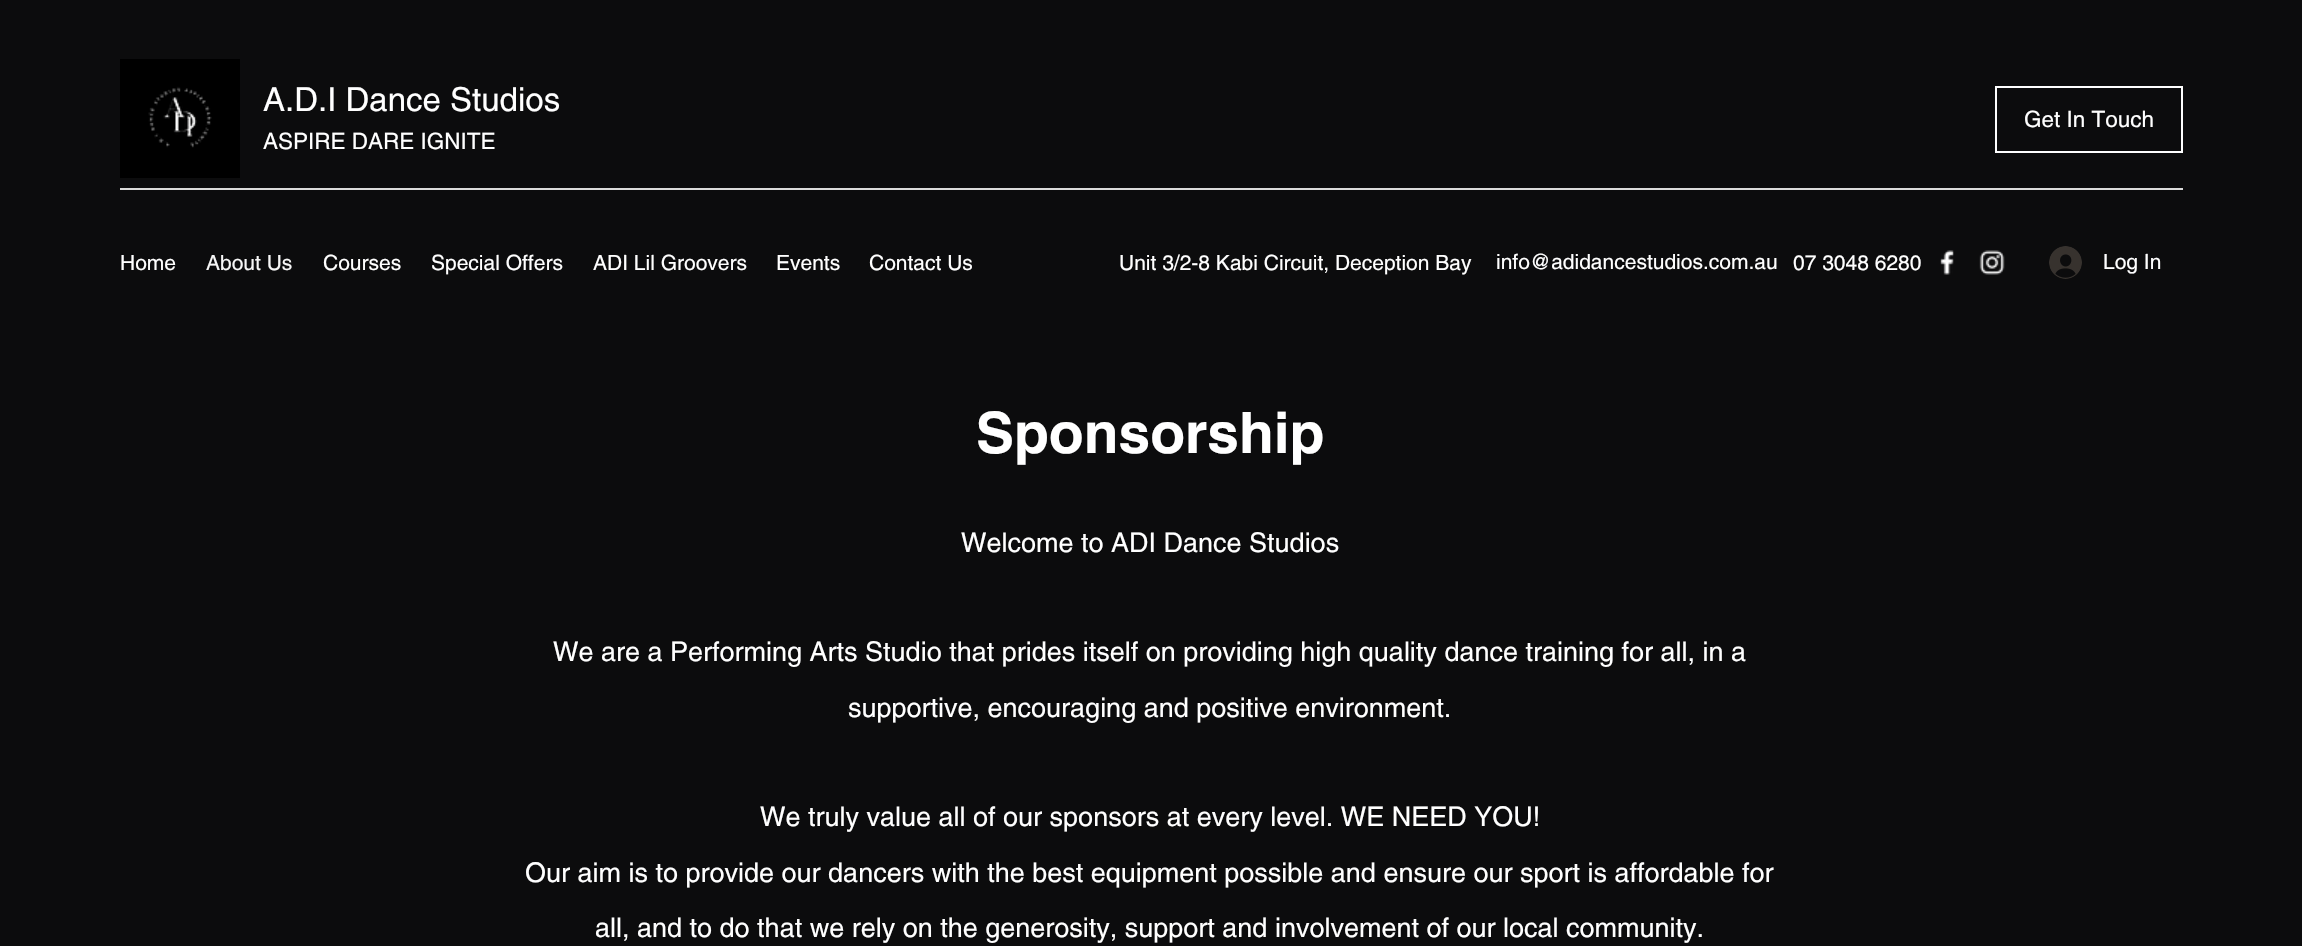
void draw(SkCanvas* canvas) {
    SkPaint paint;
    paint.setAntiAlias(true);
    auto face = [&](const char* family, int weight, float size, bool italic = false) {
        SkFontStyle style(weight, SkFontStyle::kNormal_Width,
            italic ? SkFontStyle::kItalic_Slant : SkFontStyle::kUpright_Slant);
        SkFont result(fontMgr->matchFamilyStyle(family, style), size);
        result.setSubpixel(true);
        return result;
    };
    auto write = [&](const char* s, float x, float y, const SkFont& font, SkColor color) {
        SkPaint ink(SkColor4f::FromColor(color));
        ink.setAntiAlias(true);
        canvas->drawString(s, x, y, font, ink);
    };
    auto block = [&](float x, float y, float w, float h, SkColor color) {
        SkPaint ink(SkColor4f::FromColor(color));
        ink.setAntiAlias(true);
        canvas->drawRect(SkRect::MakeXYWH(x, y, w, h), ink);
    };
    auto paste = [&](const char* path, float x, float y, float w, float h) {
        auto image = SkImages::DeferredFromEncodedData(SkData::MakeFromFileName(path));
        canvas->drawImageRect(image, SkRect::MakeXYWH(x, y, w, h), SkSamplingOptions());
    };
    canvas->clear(SkColorSetRGB(12, 12, 13));
    paste("pic1.png", 120, 59, 120, 119);
    auto kFont1 = face("helvetica", 400, 33);
    write("A.D.I Dance Studios", 263, 111, kFont1, SK_ColorWHITE);
    auto kFont2 = face("helvetica", 400, 22.5f);
    write("ASPIRE DARE IGNITE", 263, 149, kFont2, SK_ColorWHITE);
    paint.setStyle(SkPaint::kStroke_Style);
    paint.setStrokeWidth(2);
    paint.setColor(SK_ColorWHITE);
    canvas->drawRect(SkRect::MakeXYWH(1996, 87, 186, 65), paint);
    write("Get In Touch", 2024, 127, kFont2, SK_ColorWHITE);
    block(120, 188, 2063, 2, SkColorSetRGB(219, 219, 219));
    auto kFont3 = face("helvetica", 400, 21);
    write("Home", 120, 270, kFont3, SK_ColorWHITE);
    write("About Us", 206, 270, kFont3, SkColorSetRGB(247, 247, 247));
    write("Courses", 323, 270, kFont3, SK_ColorWHITE);
    write("Special Offers", 431, 270, kFont3, SK_ColorWHITE);
    write("ADI Lil Groovers", 593, 270, kFont3, SK_ColorWHITE);
    write("Events", 776, 270, kFont3, SK_ColorWHITE);
    write("Contact Us", 869, 270, kFont3, SK_ColorWHITE);
    write("Unit 3/2-8 Kabi Circuit, Deception Bay", 1119, 270, kFont3, SK_ColorWHITE);
    write("info@adidancestudios.com.au", 1496, 269, kFont3, SK_ColorWHITE);
    write("07 3048 6280", 1793, 270, kFont3, SK_ColorWHITE);
    paste("pic2.png", 1940, 250, 14, 25);
    paste("pic3.png", 1979, 250, 26, 25);
    paste("pic4.png", 2049, 246, 33, 33);
    write("Log In", 2103, 269, kFont3, SK_ColorWHITE);
    auto kFont4 = face("helvetica", 700, 57);
    write("Sponsorship", 976, 453, kFont4, SK_ColorWHITE);
    auto kFont5 = face("helvetica", 400, 27);
    write("Welcome to ADI Dance Studios", 961, 552, kFont5, SK_ColorWHITE);
    write("We are a Performing Arts Studio that prides itself on providing high quality dance training for all, in a", 553, 661, kFont5, SK_ColorWHITE);
    write("supportive, encouraging and positive environment.", 848, 717, kFont5, SK_ColorWHITE);
    write("We truly value all of our sponsors at every level. WE NEED YOU!", 760, 826, kFont5, SK_ColorWHITE);
    write("Our aim is to provide our dancers with the best equipment possible and ensure our sport is affordable for", 525, 882, kFont5, SK_ColorWHITE);
    write("all, and to do that we rely on the generosity, support and involvement of our local community.", 595, 937, kFont5, SK_ColorWHITE);
}
